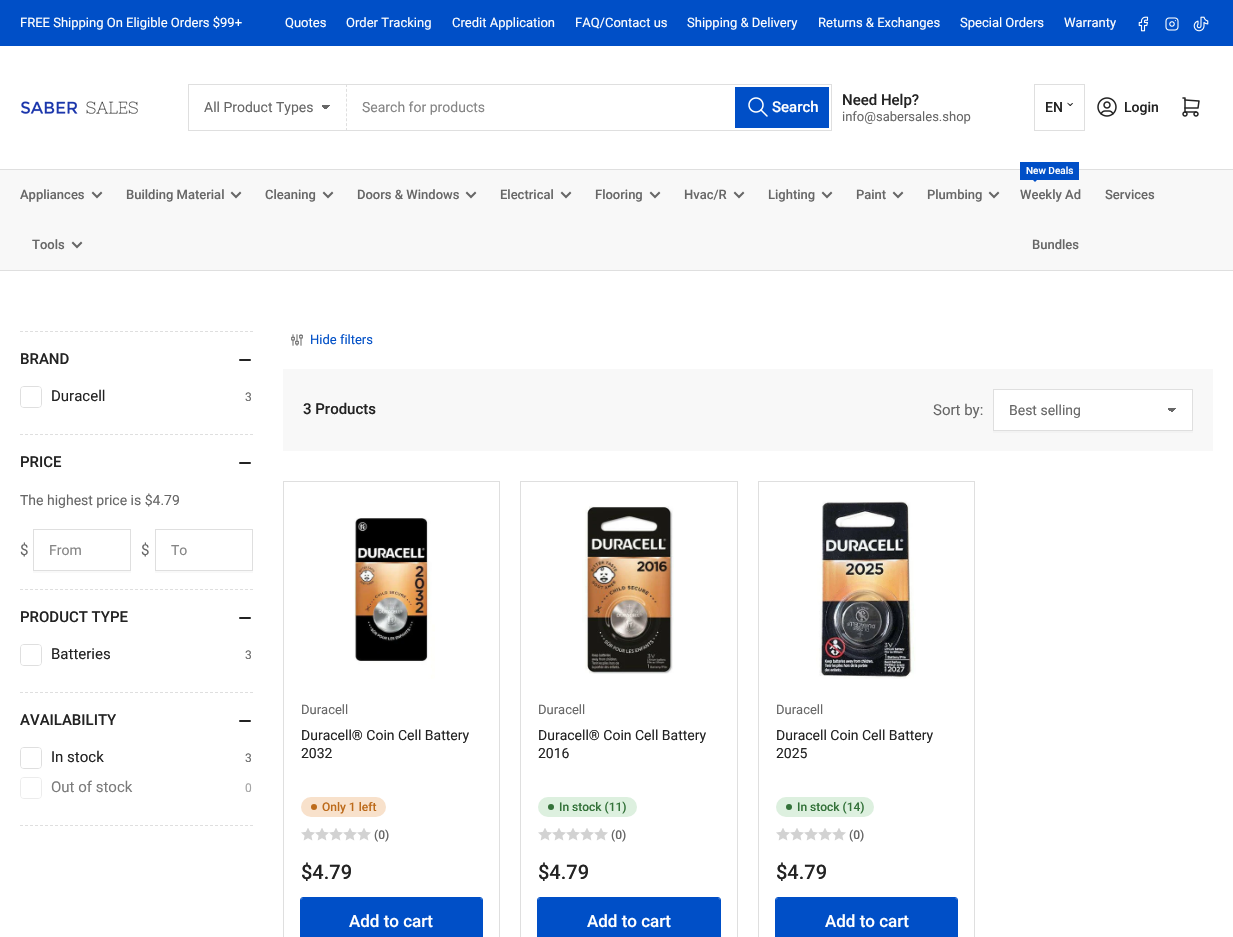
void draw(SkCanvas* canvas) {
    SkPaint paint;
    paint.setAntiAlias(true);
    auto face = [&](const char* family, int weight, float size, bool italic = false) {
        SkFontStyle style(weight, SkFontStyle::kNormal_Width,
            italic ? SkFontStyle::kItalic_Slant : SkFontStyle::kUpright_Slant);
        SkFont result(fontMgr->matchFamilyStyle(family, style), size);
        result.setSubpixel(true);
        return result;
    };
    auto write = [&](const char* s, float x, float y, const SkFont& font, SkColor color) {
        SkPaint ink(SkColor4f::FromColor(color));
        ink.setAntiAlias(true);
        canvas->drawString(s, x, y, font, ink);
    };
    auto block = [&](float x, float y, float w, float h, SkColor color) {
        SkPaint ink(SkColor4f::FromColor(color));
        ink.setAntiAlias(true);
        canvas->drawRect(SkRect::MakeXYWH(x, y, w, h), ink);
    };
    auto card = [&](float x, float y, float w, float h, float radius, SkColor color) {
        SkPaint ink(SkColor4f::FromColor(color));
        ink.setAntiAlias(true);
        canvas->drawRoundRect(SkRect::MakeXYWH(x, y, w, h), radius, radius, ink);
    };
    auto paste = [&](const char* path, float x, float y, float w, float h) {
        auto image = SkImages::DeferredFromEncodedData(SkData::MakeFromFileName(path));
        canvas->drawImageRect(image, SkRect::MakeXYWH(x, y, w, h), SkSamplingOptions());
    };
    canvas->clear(SK_ColorWHITE);
    block(0, 0, 1233, 46, SkColorSetRGB(0, 79, 199));
    auto kFont1 = face("Roboto", 400, 13);
    write("FREE Shipping On Eligible Orders $99+", 20, 27, kFont1, SK_ColorWHITE);
    write("Quotes", 285, 27, kFont1, SK_ColorWHITE);
    write("Order Tracking", 346, 27, kFont1, SK_ColorWHITE);
    write("Credit Application", 452, 27, kFont1, SK_ColorWHITE);
    write("FAQ/Contact us", 575, 27, kFont1, SK_ColorWHITE);
    write("Shipping & Delivery", 687, 27, kFont1, SK_ColorWHITE);
    write("Returns & Exchanges", 818, 27, kFont1, SK_ColorWHITE);
    write("Special Orders", 960, 27, kFont1, SK_ColorWHITE);
    write("Warranty", 1064, 27, kFont1, SK_ColorWHITE);
    paste("pic1.png", 1138, 16, 11, 16);
    paste("pic2.png", 1165, 17, 14, 14);
    paste("pic3.png", 1193, 16, 16, 16);
    paste("pic4.png", 21, 101, 117, 13);
    {
        const SkColor colors[] = {SkColorSetRGB(103, 103, 103), SK_ColorWHITE};
        const float stops[] = {0.5f, 0.5f};
        const SkPoint ends[] = {{326, 105}, {331, 110}};
        paint.setShader(SkGradientShader::MakeLinear(ends, colors, stops, 2, SkTileMode::kClamp));
        paint.setAlpha(255);
    }
    canvas->drawRect(SkRect::MakeXYWH(326, 105, 5, 4), paint);
    {
        const SkColor colors[] = {SK_ColorWHITE, SkColorSetRGB(103, 103, 103)};
        const float stops[] = {0.5f, 0.5f};
        const SkPoint ends[] = {{321, 110}, {326, 105}};
        paint.setShader(SkGradientShader::MakeLinear(ends, colors, stops, 2, SkTileMode::kClamp));
        paint.setAlpha(255);
    }
    canvas->drawRect(SkRect::MakeXYWH(321, 105, 5, 4), paint);
    block(188, 84, 644, 1, SkColorSetRGB(223, 223, 223));
    paint.setStyle(SkPaint::kStroke_Style);
    paint.setStrokeWidth(1);
    paint.setShader(nullptr);
    paint.setColor(SkColorSetRGB(223, 223, 223));
    paint.setPathEffect(SkDashPathEffect::Make({{3, 1.89f}}, 0));
    canvas->drawPath(SkPathBuilder().moveTo(346.5f, 84).lineTo(346.5f, 131).detach(), paint);
    paint.setPathEffect(nullptr);
    block(188, 130, 159, 1, SkColorSetRGB(223, 223, 223));
    block(188, 84, 1, 47, SkColorSetRGB(223, 223, 223));
    auto kFont2 = face("Roboto", 400, 14);
    write("All Product Types", 204, 112, kFont2, SkColorSetRGB(103, 103, 103));
    block(831, 84, 1, 47, SkColorSetRGB(223, 223, 223));
    block(347, 130, 485, 1, SkColorSetRGB(223, 223, 223));
    write("Search for products", 362, 112, kFont2, SkColorSetRGB(133, 133, 133));
    paint.setColor(SkColorSetRGB(0, 79, 199));
    canvas->drawRect(SkRect::MakeXYWH(735.5f, 87.5f, 93, 40), paint);
    block(736, 88, 92, 39, SkColorSetRGB(0, 79, 199));
    paste("pic5.png", 748, 97, 20, 20);
    auto kFont3 = face("Roboto", 500, 15);
    write("Search", 772, 112, kFont3, SK_ColorWHITE);
    write("Need Help?", 842, 105, kFont3, SkColorSetRGB(35, 35, 35));
    write("info@sabersales.shop", 842, 121, kFont1, SkColorSetRGB(103, 103, 103));
    paint.setColor(SkColorSetRGB(223, 223, 223));
    canvas->drawRect(SkRect::MakeXYWH(1034.5f, 84.5f, 50, 46), paint);
    auto kFont4 = face("Roboto", 500, 14);
    write("EN", 1045, 112, kFont4, SkColorSetRGB(35, 35, 35));
    paint.setStyle(SkPaint::kFill_Style);
    paint.setColor(SkColorSetRGB(35, 35, 35));
    canvas->drawPath(SkPathBuilder().moveTo(1068, 103).lineTo(1070, 104.5f).cubicTo(1070.5f, 105, 1071, 106.5f, 1070, 106).lineTo(1067.5f, 103.5f).cubicTo(1067, 103, 1068, 102.5f, 1068, 103).close().detach(), paint);
    canvas->drawPath(SkPathBuilder().moveTo(1070, 105).lineTo(1071.5f, 103.5f).cubicTo(1072, 103, 1073.5f, 102.5f, 1073, 103.5f).lineTo(1070.5f, 106).cubicTo(1070, 106, 1069.5f, 105.5f, 1070, 105).close().detach(), paint);
    paste("pic6.png", 1097, 97, 20, 20);
    write("Login", 1124, 112, kFont4, SkColorSetRGB(35, 35, 35));
    paste("pic7.png", 1182, 97, 18, 20);
    block(0, 170, 1233, 100, SkColorSetRGB(248, 248, 248));
    block(0, 169, 1233, 1, SkColorSetRGB(223, 223, 223));
    block(0, 270, 1233, 1, SkColorSetRGB(223, 223, 223));
    auto kFont5 = face("Roboto", 500, 13);
    write("Appliances", 20, 199, kFont5, SkColorSetRGB(103, 103, 103));
    paint.setStyle(SkPaint::kStroke_Style);
    paint.setStrokeWidth(2);
    paint.setStrokeCap(SkPaint::kSquare_Cap);
    paint.setColor(SkColorSetRGB(103, 103, 103));
    canvas->drawPath(SkPathBuilder().moveTo(101, 193).lineTo(97, 197).lineTo(93, 193).detach(), paint);
    write("Building Material", 126, 199, kFont5, SkColorSetRGB(103, 103, 103));
    canvas->drawPath(SkPathBuilder().moveTo(240, 193).lineTo(236, 197).lineTo(232, 193).detach(), paint);
    write("Cleaning", 265, 199, kFont5, SkColorSetRGB(103, 103, 103));
    canvas->drawPath(SkPathBuilder().moveTo(332, 193).lineTo(328, 197).lineTo(324, 193).detach(), paint);
    write("Doors & Windows", 357, 199, kFont5, SkColorSetRGB(103, 103, 103));
    canvas->drawPath(SkPathBuilder().moveTo(475, 193).lineTo(471, 197).lineTo(467, 193).detach(), paint);
    write("Electrical", 500, 199, kFont5, SkColorSetRGB(103, 103, 103));
    canvas->drawPath(SkPathBuilder().moveTo(570, 193).lineTo(566, 197).lineTo(562, 193).detach(), paint);
    write("Flooring", 595, 199, kFont5, SkColorSetRGB(103, 103, 103));
    canvas->drawPath(SkPathBuilder().moveTo(659, 193).lineTo(655, 197).lineTo(651, 193).detach(), paint);
    write("Hvac/R", 684, 199, kFont5, SkColorSetRGB(103, 103, 103));
    canvas->drawPath(SkPathBuilder().moveTo(743, 193).lineTo(739, 197).lineTo(735, 193).detach(), paint);
    write("Lighting", 768, 199, kFont5, SkColorSetRGB(103, 103, 103));
    canvas->drawPath(SkPathBuilder().moveTo(831, 193).lineTo(827, 197).lineTo(823, 193).detach(), paint);
    write("Paint", 856, 199, kFont5, SkColorSetRGB(103, 103, 103));
    canvas->drawPath(SkPathBuilder().moveTo(902, 193).lineTo(898, 197).lineTo(894, 193).detach(), paint);
    write("Plumbing", 927, 199, kFont5, SkColorSetRGB(103, 103, 103));
    canvas->drawPath(SkPathBuilder().moveTo(998, 193).lineTo(994, 197).lineTo(990, 193).detach(), paint);
    write("Tools", 32, 249, kFont5, SkColorSetRGB(103, 103, 103));
    canvas->drawPath(SkPathBuilder().moveTo(81, 243).lineTo(77, 247).lineTo(73, 243).detach(), paint);
    block(1020, 162, 59, 18, SkColorSetRGB(0, 79, 199));
    auto kFont6 = face("Roboto", 500, 10);
    write("New Deals", 1026, 174, kFont6, SK_ColorWHITE);
    paint.setStyle(SkPaint::kFill_Style);
    paint.setColor(SkColorSetRGB(0, 79, 199));
    canvas->drawPath(SkPathBuilder().moveTo(1033, 180).lineTo(1037, 180).lineTo(1035, 182).close().detach(), paint);
    write("Weekly Ad", 1020, 199, kFont5, SkColorSetRGB(103, 103, 103));
    write("Services", 1105, 199, kFont5, SkColorSetRGB(103, 103, 103));
    write("Bundles", 1032, 249, kFont5, SkColorSetRGB(103, 103, 103));
    paint.setStyle(SkPaint::kStroke_Style);
    paint.setStrokeWidth(1);
    paint.setStrokeCap(SkPaint::kButt_Cap);
    paint.setColor(SkColorSetRGB(223, 223, 223));
    paint.setPathEffect(SkDashPathEffect::Make({{3, 2}}, 0));
    canvas->drawPath(SkPathBuilder().moveTo(20, 331.5f).lineTo(253, 331.5f).detach(), paint);
    paint.setPathEffect(nullptr);
    paint.setPathEffect(SkDashPathEffect::Make({{3, 2}}, 0));
    canvas->drawPath(SkPathBuilder().moveTo(20, 434.5f).lineTo(253, 434.5f).detach(), paint);
    paint.setPathEffect(nullptr);
    write("BRAND", 20, 364, kFont3, SkColorSetRGB(35, 35, 35));
    card(239, 359, 8, 2, 1, SkColorSetRGB(35, 35, 35));
    card(244, 359, 7, 2, 1, SkColorSetRGB(35, 35, 35));
    canvas->drawRoundRect(SkRect::MakeXYWH(20.5f, 386.5f, 21, 21), 3.5f, 3.5f, paint);
    card(21, 387, 20, 20, 3, SK_ColorWHITE);
    auto kFont7 = face("Roboto", 400, 15);
    write("Duracell", 51, 401, kFont7, SkColorSetRGB(35, 35, 35));
    auto kFont8 = face("Roboto", 400, 12);
    write("3", 245, 401, kFont8, SkColorSetRGB(103, 103, 103));
    paint.setPathEffect(SkDashPathEffect::Make({{3, 2}}, 0));
    canvas->drawPath(SkPathBuilder().moveTo(20, 589.5f).lineTo(253, 589.5f).detach(), paint);
    paint.setPathEffect(nullptr);
    write("PRICE", 20, 467, kFont3, SkColorSetRGB(35, 35, 35));
    card(239, 462, 8, 2, 1, SkColorSetRGB(35, 35, 35));
    card(244, 462, 7, 2, 1, SkColorSetRGB(35, 35, 35));
    write("The highest price is $4.79", 20, 505, kFont2, SkColorSetRGB(103, 103, 103));
    write("$", 20, 555, kFont7, SkColorSetRGB(103, 103, 103));
    block(33, 571, 98, 2, SkColorSetRGB(249, 249, 249));
    canvas->drawRect(SkRect::MakeXYWH(33.5f, 529.5f, 97, 41), paint);
    write("From", 49, 555, kFont2, SkColorSetRGB(133, 133, 133));
    write("$", 141, 555, kFont7, SkColorSetRGB(103, 103, 103));
    block(155, 571, 98, 2, SkColorSetRGB(249, 249, 249));
    canvas->drawRect(SkRect::MakeXYWH(155.5f, 529.5f, 97, 41), paint);
    write("To", 171, 555, kFont2, SkColorSetRGB(133, 133, 133));
    paint.setPathEffect(SkDashPathEffect::Make({{3, 2}}, 0));
    canvas->drawPath(SkPathBuilder().moveTo(20, 692.5f).lineTo(253, 692.5f).detach(), paint);
    paint.setPathEffect(nullptr);
    write("PRODUCT TYPE", 20, 622, kFont3, SkColorSetRGB(35, 35, 35));
    card(239, 617, 8, 2, 1, SkColorSetRGB(35, 35, 35));
    card(244, 617, 7, 2, 1, SkColorSetRGB(35, 35, 35));
    canvas->drawRoundRect(SkRect::MakeXYWH(20.5f, 644.5f, 21, 21), 3.5f, 3.5f, paint);
    card(21, 645, 20, 20, 3, SK_ColorWHITE);
    write("Batteries", 51, 659, kFont7, SkColorSetRGB(35, 35, 35));
    write("3", 245, 659, kFont8, SkColorSetRGB(103, 103, 103));
    paint.setPathEffect(SkDashPathEffect::Make({{3, 2}}, 0));
    canvas->drawPath(SkPathBuilder().moveTo(20, 825.5f).lineTo(253, 825.5f).detach(), paint);
    paint.setPathEffect(nullptr);
    write("AVAILABILITY", 20, 725, kFont3, SkColorSetRGB(35, 35, 35));
    card(239, 720, 8, 2, 1, SkColorSetRGB(35, 35, 35));
    card(244, 720, 7, 2, 1, SkColorSetRGB(35, 35, 35));
    canvas->drawRoundRect(SkRect::MakeXYWH(20.5f, 747.5f, 21, 21), 3.5f, 3.5f, paint);
    card(21, 748, 20, 20, 3, SK_ColorWHITE);
    write("In stock", 51, 762, kFont7, SkColorSetRGB(35, 35, 35));
    write("3", 245, 762, kFont8, SkColorSetRGB(103, 103, 103));
    paint.setColor(SkColorSetRGB(236, 236, 236));
    canvas->drawRoundRect(SkRect::MakeXYWH(20.5f, 777.5f, 21, 21), 3.5f, 3.5f, paint);
    card(21, 778, 20, 20, 3, SK_ColorWHITE);
    write("Out of stock", 51, 792, kFont7, SkColorSetRGB(123, 123, 123));
    write("0", 245, 792, kFont8, SkColorSetRGB(164, 164, 164));
    paste("pic8.png", 291, 334, 12, 12);
    write("Hide filters", 310, 344, kFont1, SkColorSetRGB(0, 79, 199));
    block(283, 369, 930, 82, SkColorSetRGB(248, 248, 248));
    write("3 Products", 303, 414, kFont3, SkColorSetRGB(35, 35, 35));
    write("Sort by:", 933, 415, kFont7, SkColorSetRGB(103, 103, 103));
    block(993, 431, 200, 2, SkColorSetRGB(243, 243, 243));
    block(994, 390, 198, 40, SK_ColorWHITE);
    paint.setStyle(SkPaint::kFill_Style);
    {
        const SkColor colors[] = {SkColorSetRGB(103, 103, 103), SK_ColorWHITE};
        const float stops[] = {0.5f, 0.5f};
        const SkPoint ends[] = {{1172, 408}, {1177, 413}};
        paint.setShader(SkGradientShader::MakeLinear(ends, colors, stops, 2, SkTileMode::kClamp));
        paint.setAlpha(255);
    }
    canvas->drawRect(SkRect::MakeXYWH(1172, 408, 5, 4), paint);
    {
        const SkColor colors[] = {SK_ColorWHITE, SkColorSetRGB(103, 103, 103)};
        const float stops[] = {0.5f, 0.5f};
        const SkPoint ends[] = {{1167, 413}, {1172, 408}};
        paint.setShader(SkGradientShader::MakeLinear(ends, colors, stops, 2, SkTileMode::kClamp));
        paint.setAlpha(255);
    }
    canvas->drawRect(SkRect::MakeXYWH(1167, 408, 5, 4), paint);
    paint.setStyle(SkPaint::kStroke_Style);
    paint.setShader(nullptr);
    paint.setColor(SkColorSetRGB(223, 223, 223));
    canvas->drawRect(SkRect::MakeXYWH(993.5f, 389.5f, 199, 41), paint);
    write("Best selling", 1009, 415, kFont2, SkColorSetRGB(103, 103, 103));
    canvas->drawRect(SkRect::MakeXYWH(283.5f, 481.5f, 216, 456), paint);
    paste("pic9.png", 354, 518, 81, 161);
    write("Duracell", 301, 714, kFont1, SkColorSetRGB(103, 103, 103));
    write("Duracell® Coin Cell Battery", 301, 740, kFont2, SkColorSetRGB(35, 35, 35));
    write("2032", 301, 758, kFont2, SkColorSetRGB(35, 35, 35));
    card(301, 797, 85, 20, 10, SkColorSetRGB(248, 225, 203));
    paint.setStyle(SkPaint::kFill_Style);
    paint.setColor(SkColorSetRGB(189, 107, 27));
    canvas->drawCircle(314, 807, 3, paint);
    auto kFont9 = face("Roboto", 500, 12);
    write("Only 1 left", 322, 811, kFont9, SkColorSetRGB(189, 107, 27));
    paste("pic10.png", 301, 828, 14, 13);
    paste("pic10.png", 315, 828, 14, 13);
    paste("pic10.png", 329, 828, 14, 13);
    paste("pic10.png", 343, 828, 14, 13);
    paste("pic10.png", 357, 828, 14, 13);
    write("(0)", 374, 839, kFont9, SkColorSetRGB(103, 103, 103));
    auto kFont10 = face("Roboto", 500, 20);
    write("$4.79", 301, 879, kFont10, SkColorSetRGB(35, 35, 35));
    paint.setStyle(SkPaint::kStroke_Style);
    paint.setColor(SkColorSetRGB(0, 79, 199));
    canvas->drawRoundRect(SkRect::MakeXYWH(300.5f, 897.5f, 182, 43), 2.5f, 2.5f, paint);
    card(301, 898, 181, 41, 2, SkColorSetRGB(0, 79, 199));
    auto kFont11 = face("Roboto", 500, 17);
    write("Add to cart", 349, 927, kFont11, SK_ColorWHITE);
    paint.setColor(SkColorSetRGB(223, 223, 223));
    canvas->drawRect(SkRect::MakeXYWH(520.5f, 481.5f, 217, 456), paint);
    paste("pic11.png", 582, 506, 92, 168);
    write("Duracell", 538, 714, kFont1, SkColorSetRGB(103, 103, 103));
    write("Duracell® Coin Cell Battery", 538, 740, kFont2, SkColorSetRGB(35, 35, 35));
    write("2016", 538, 758, kFont2, SkColorSetRGB(35, 35, 35));
    card(538, 797, 99, 20, 10, SkColorSetRGB(221, 240, 223));
    paint.setStyle(SkPaint::kFill_Style);
    paint.setColor(SkColorSetRGB(51, 114, 57));
    canvas->drawCircle(551, 807, 3, paint);
    write("In stock (11)", 559, 811, kFont9, SkColorSetRGB(51, 114, 57));
    paste("pic10.png", 538, 828, 14, 13);
    paste("pic10.png", 552, 828, 14, 13);
    paste("pic10.png", 566, 828, 14, 13);
    paste("pic10.png", 580, 828, 14, 13);
    paste("pic10.png", 594, 828, 14, 13);
    write("(0)", 611, 839, kFont9, SkColorSetRGB(103, 103, 103));
    write("$4.79", 538, 879, kFont10, SkColorSetRGB(35, 35, 35));
    paint.setStyle(SkPaint::kStroke_Style);
    paint.setColor(SkColorSetRGB(0, 79, 199));
    canvas->drawRoundRect(SkRect::MakeXYWH(537.5f, 897.5f, 183, 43), 2.5f, 2.5f, paint);
    card(538, 898, 182, 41, 2, SkColorSetRGB(0, 79, 199));
    write("Add to cart", 587, 927, kFont11, SK_ColorWHITE);
    paint.setColor(SkColorSetRGB(223, 223, 223));
    canvas->drawRect(SkRect::MakeXYWH(758.5f, 481.5f, 216, 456), paint);
    paste("pic12.png", 816, 500, 100, 179);
    write("Duracell", 776, 714, kFont1, SkColorSetRGB(103, 103, 103));
    write("Duracell Coin Cell Battery", 776, 740, kFont2, SkColorSetRGB(35, 35, 35));
    write("2025", 776, 758, kFont2, SkColorSetRGB(35, 35, 35));
    card(776, 797, 98, 20, 10, SkColorSetRGB(221, 240, 223));
    paint.setStyle(SkPaint::kFill_Style);
    paint.setColor(SkColorSetRGB(51, 114, 57));
    canvas->drawCircle(789, 807, 3, paint);
    write("In stock (14)", 797, 811, kFont9, SkColorSetRGB(51, 114, 57));
    paste("pic10.png", 776, 828, 14, 13);
    paste("pic10.png", 790, 828, 14, 13);
    paste("pic10.png", 804, 828, 14, 13);
    paste("pic10.png", 818, 828, 14, 13);
    paste("pic10.png", 832, 828, 14, 13);
    write("(0)", 849, 839, kFont9, SkColorSetRGB(103, 103, 103));
    write("$4.79", 776, 879, kFont10, SkColorSetRGB(35, 35, 35));
    paint.setStyle(SkPaint::kStroke_Style);
    paint.setColor(SkColorSetRGB(0, 79, 199));
    canvas->drawRoundRect(SkRect::MakeXYWH(775.5f, 897.5f, 182, 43), 2.5f, 2.5f, paint);
    card(776, 898, 181, 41, 2, SkColorSetRGB(0, 79, 199));
    write("Add to cart", 825, 927, kFont11, SK_ColorWHITE);
}
